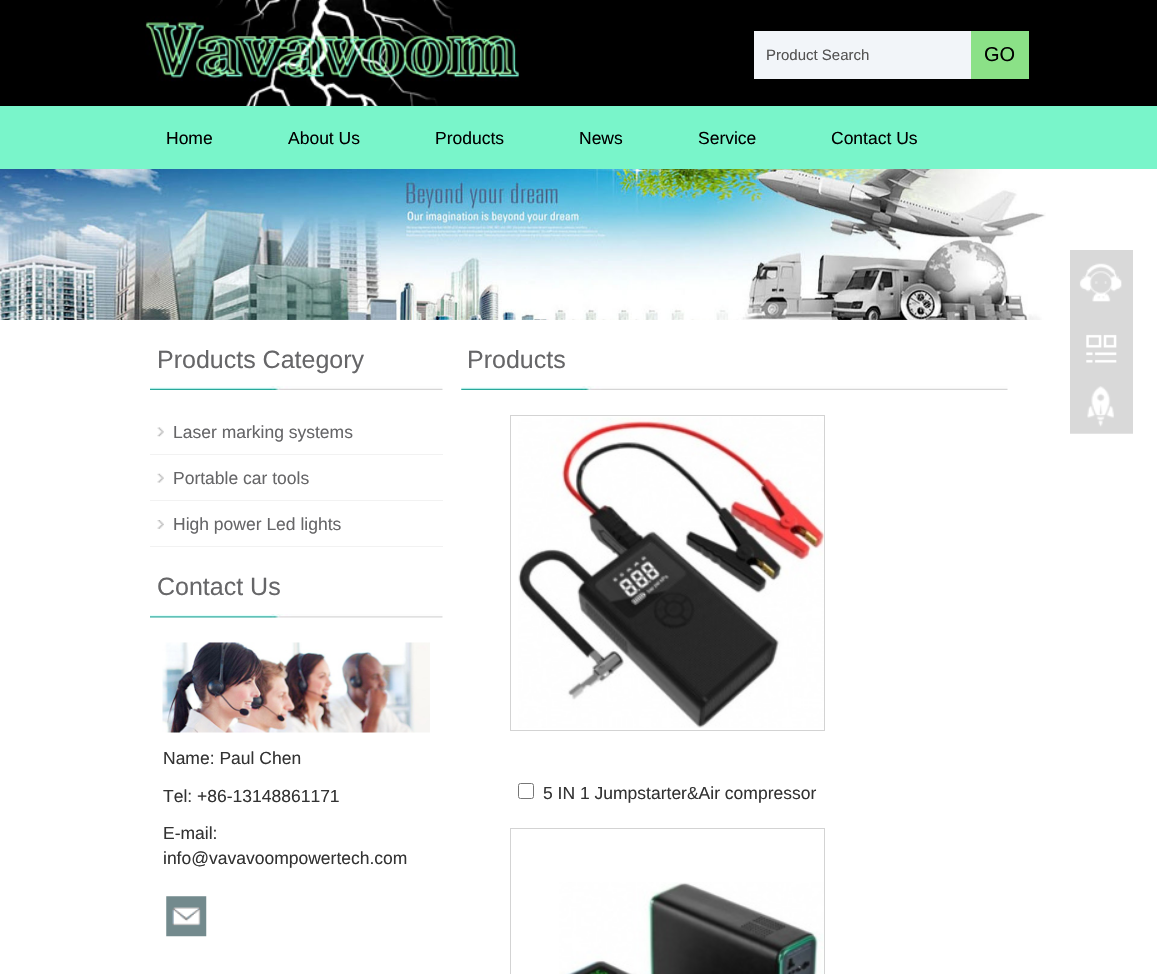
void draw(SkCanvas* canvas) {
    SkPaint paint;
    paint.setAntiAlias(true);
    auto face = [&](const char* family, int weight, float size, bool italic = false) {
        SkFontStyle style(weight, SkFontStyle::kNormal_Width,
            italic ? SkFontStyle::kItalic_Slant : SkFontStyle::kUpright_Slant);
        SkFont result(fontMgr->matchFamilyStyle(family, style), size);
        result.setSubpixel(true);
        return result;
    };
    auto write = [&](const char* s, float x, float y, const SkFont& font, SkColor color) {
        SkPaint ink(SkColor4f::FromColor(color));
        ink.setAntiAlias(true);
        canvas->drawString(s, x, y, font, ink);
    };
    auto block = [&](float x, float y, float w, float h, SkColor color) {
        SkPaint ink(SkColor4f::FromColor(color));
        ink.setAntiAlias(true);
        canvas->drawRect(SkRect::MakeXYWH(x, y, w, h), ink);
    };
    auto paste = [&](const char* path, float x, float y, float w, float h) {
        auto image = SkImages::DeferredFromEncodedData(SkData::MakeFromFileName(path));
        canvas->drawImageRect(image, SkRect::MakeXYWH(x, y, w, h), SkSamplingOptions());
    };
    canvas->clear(SK_ColorWHITE);
    block(0, 0, 1157, 106, SK_ColorBLACK);
    paste("pic1.png", 145, 0, 375, 106);
    block(754, 31, 217, 48, SkColorSetRGB(242, 245, 249));
    auto kFont1 = face("Liberation Sans", 400, 15);
    write("Product Search", 766, 60, kFont1, SkColorSetRGB(84, 83, 83));
    block(971, 31, 58, 48, SkColorSetRGB(139, 225, 135));
    auto kFont2 = face("Liberation Sans", 400, 20);
    write("GO", 984, 61, kFont2, SK_ColorBLACK);
    block(0, 106, 1157, 63, SkColorSetRGB(121, 245, 202));
    auto kFont3 = face("Liberation Sans", 400, 17.5f);
    write("Home", 166, 144, kFont3, SK_ColorBLACK);
    write("About Us", 288, 144, kFont3, SK_ColorBLACK);
    write("Products", 435, 144, kFont3, SK_ColorBLACK);
    write("News", 579, 144, kFont3, SK_ColorBLACK);
    write("Service", 698, 144, kFont3, SK_ColorBLACK);
    write("Contact Us", 831, 144, kFont3, SK_ColorBLACK);
    paste("pic2.png", 0, 169, 1046, 151);
    paint.setColor(SK_ColorWHITE);
    canvas->drawCircle(556.5f, 296.5f, 8.5f, paint);
    paste("pic3.png", 1070, 250, 63, 184);
    paste("pic4.png", 150, 386, 293, 4);
    auto kFont4 = face("Liberation Sans", 400, 25);
    write("Products Category", 157, 368, kFont4, SkColorSetRGB(102, 102, 104));
    paste("pic5.png", 157, 427, 7, 10);
    block(150, 454, 293, 1, SkColorSetRGB(242, 242, 242));
    write("Laser marking systems", 173, 438, kFont3, SkColorSetRGB(102, 102, 104));
    paste("pic6.png", 157, 473, 7, 10);
    block(150, 500, 293, 1, SkColorSetRGB(242, 242, 242));
    write("Portable car tools", 173, 484, kFont3, SkColorSetRGB(102, 102, 104));
    paste("pic7.png", 157, 520, 7, 9);
    block(150, 546, 293, 1, SkColorSetRGB(242, 242, 242));
    write("High power Led lights", 173, 530, kFont3, SkColorSetRGB(102, 102, 104));
    paste("pic8.png", 150, 614, 293, 4);
    write("Contact Us", 157, 595, kFont4, SkColorSetRGB(102, 102, 104));
    paste("pic9.png", 162, 642, 268, 91);
    write("Name: Paul Chen", 163, 764, kFont3, SkColorSetRGB(51, 51, 51));
    write("Tel: +86-13148861171", 163, 802, kFont3, SkColorSetRGB(51, 51, 51));
    write("E-mail:", 163, 839, kFont3, SkColorSetRGB(51, 51, 51));
    write("info@vavavoompowertech.com", 163, 864, kFont3, SkColorSetRGB(51, 51, 51));
    paste("pic10.png", 166, 896, 41, 41);
    paste("pic11.png", 461, 386, 547, 4);
    write("Products", 467, 368, kFont4, SkColorSetRGB(102, 102, 104));
    paint.setStyle(SkPaint::kStroke_Style);
    paint.setStrokeWidth(1);
    paint.setColor(SkColorSetRGB(211, 211, 211));
    canvas->drawRect(SkRect::MakeXYWH(510.5f, 415.5f, 314, 315), paint);
    paste("pic12.png", 518, 417, 306, 311);
    paint.setColor(SkColorSetRGB(118, 118, 118));
    canvas->drawRoundRect(SkRect::MakeXYWH(518.5f, 783.5f, 15, 15), 2, 2, paint);
    write("5 IN 1 Jumpstarter&Air compressor", 543, 799, kFont3, SkColorSetRGB(51, 51, 51));
    paint.setColor(SkColorSetRGB(211, 211, 211));
    canvas->drawRect(SkRect::MakeXYWH(510.5f, 828.5f, 314, 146), paint);
    paste("pic13.png", 559, 882, 265, 92);
}
